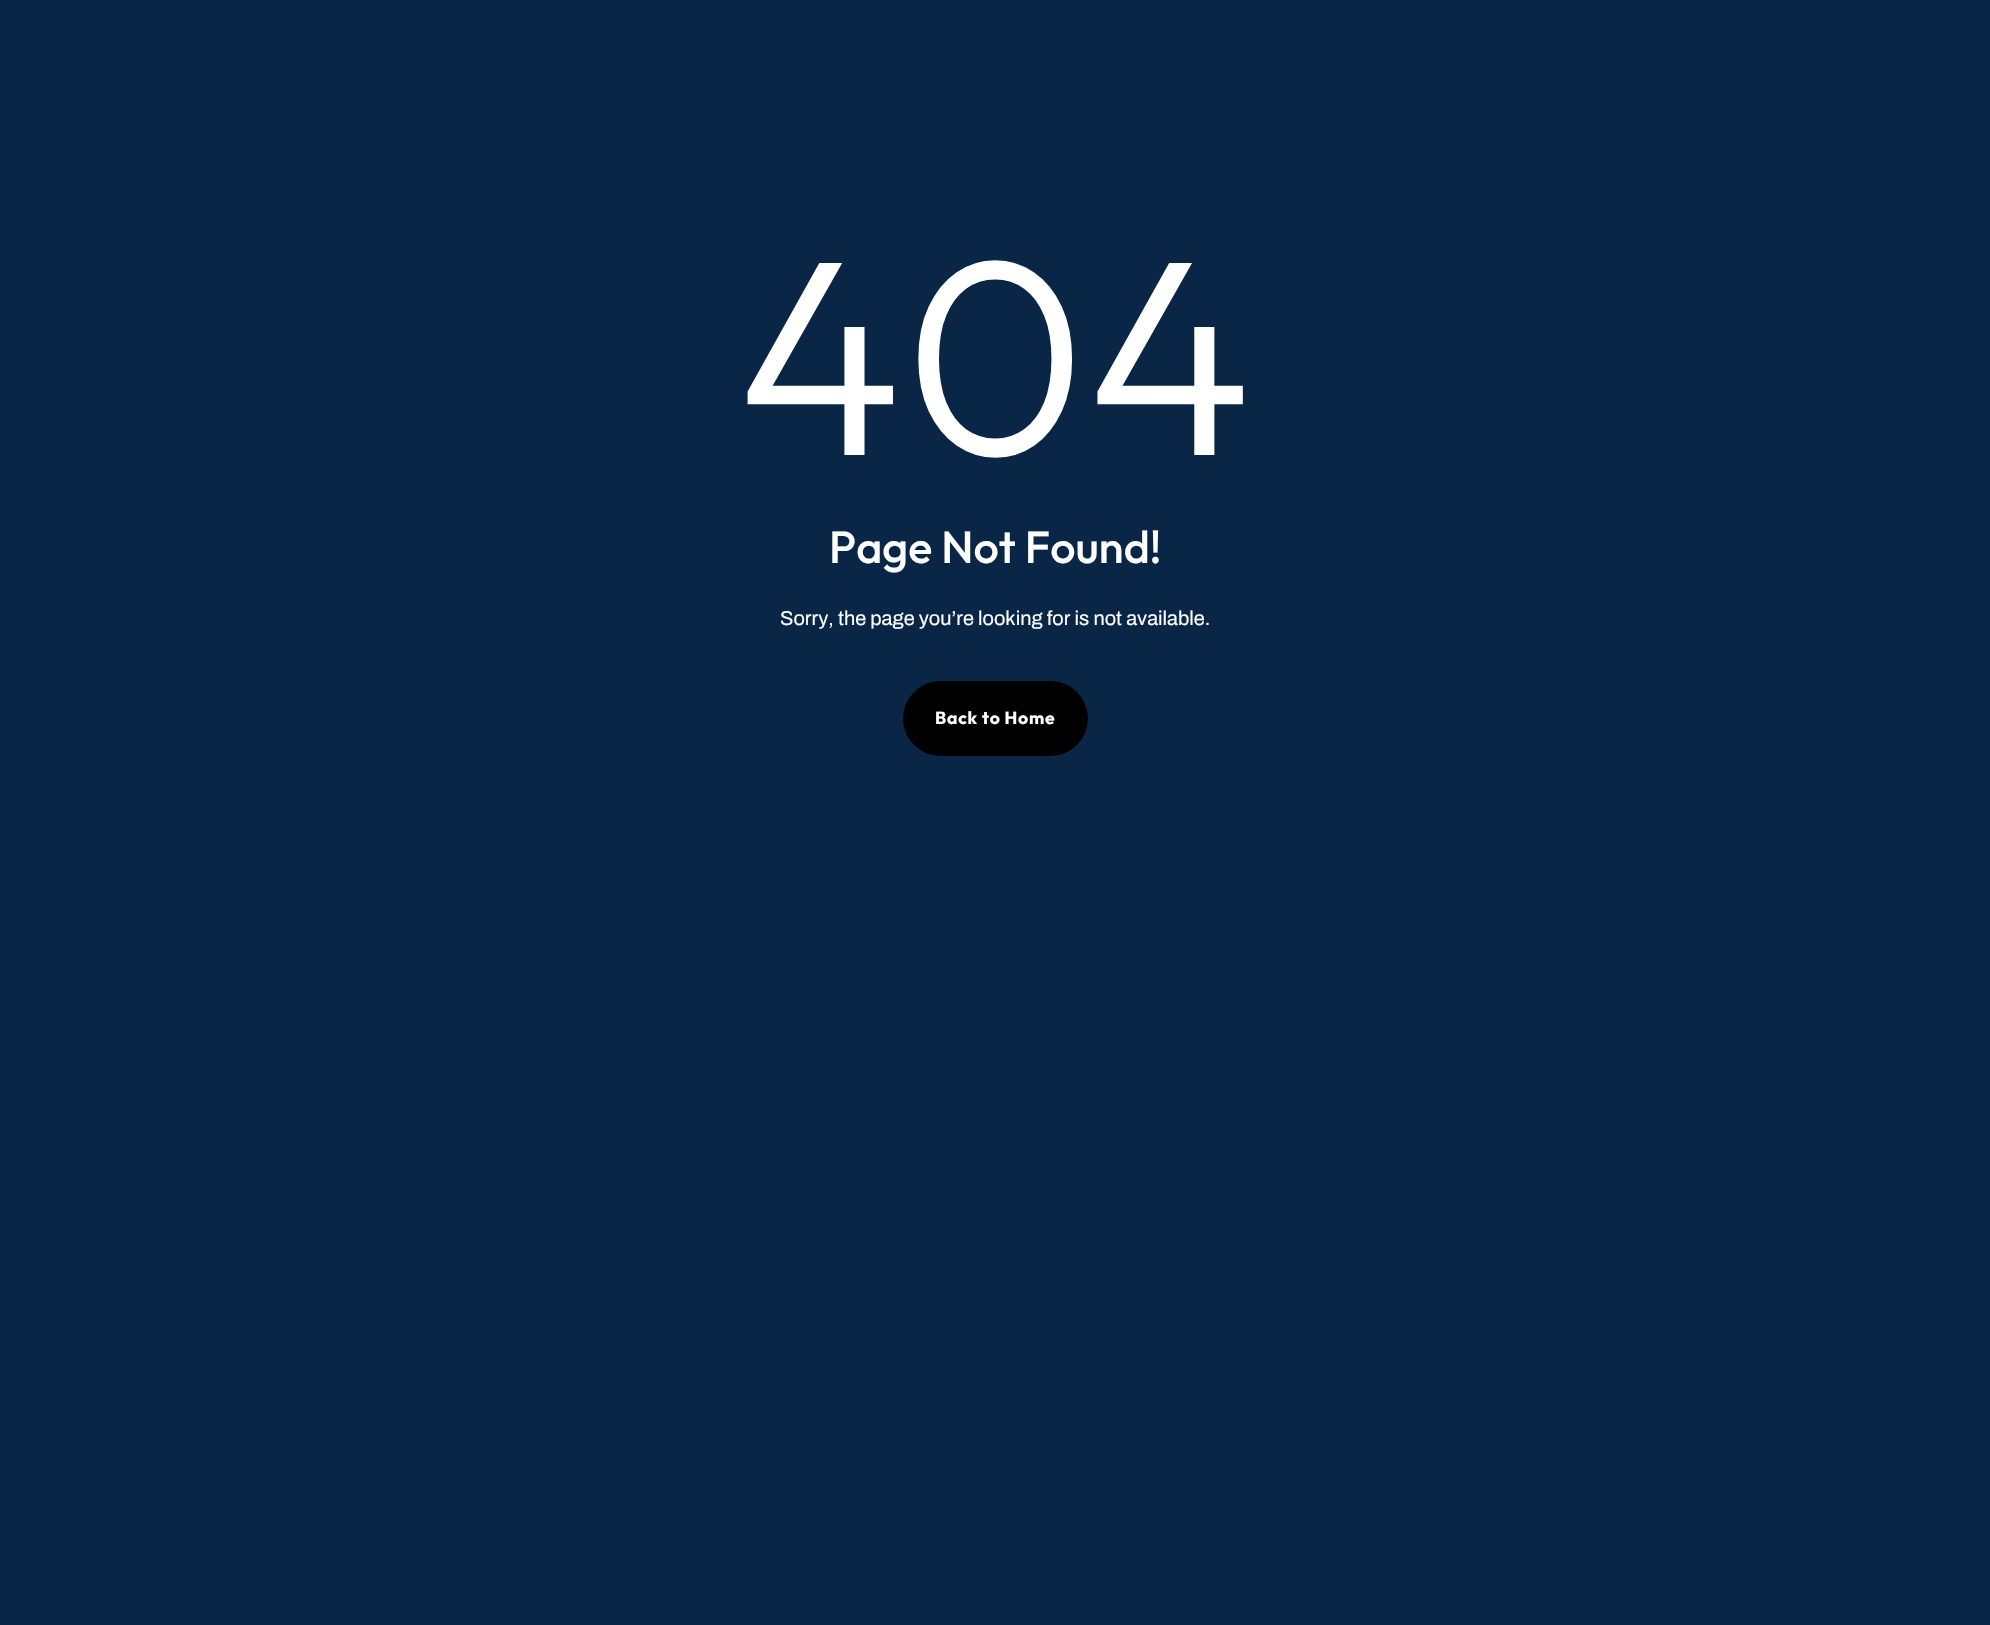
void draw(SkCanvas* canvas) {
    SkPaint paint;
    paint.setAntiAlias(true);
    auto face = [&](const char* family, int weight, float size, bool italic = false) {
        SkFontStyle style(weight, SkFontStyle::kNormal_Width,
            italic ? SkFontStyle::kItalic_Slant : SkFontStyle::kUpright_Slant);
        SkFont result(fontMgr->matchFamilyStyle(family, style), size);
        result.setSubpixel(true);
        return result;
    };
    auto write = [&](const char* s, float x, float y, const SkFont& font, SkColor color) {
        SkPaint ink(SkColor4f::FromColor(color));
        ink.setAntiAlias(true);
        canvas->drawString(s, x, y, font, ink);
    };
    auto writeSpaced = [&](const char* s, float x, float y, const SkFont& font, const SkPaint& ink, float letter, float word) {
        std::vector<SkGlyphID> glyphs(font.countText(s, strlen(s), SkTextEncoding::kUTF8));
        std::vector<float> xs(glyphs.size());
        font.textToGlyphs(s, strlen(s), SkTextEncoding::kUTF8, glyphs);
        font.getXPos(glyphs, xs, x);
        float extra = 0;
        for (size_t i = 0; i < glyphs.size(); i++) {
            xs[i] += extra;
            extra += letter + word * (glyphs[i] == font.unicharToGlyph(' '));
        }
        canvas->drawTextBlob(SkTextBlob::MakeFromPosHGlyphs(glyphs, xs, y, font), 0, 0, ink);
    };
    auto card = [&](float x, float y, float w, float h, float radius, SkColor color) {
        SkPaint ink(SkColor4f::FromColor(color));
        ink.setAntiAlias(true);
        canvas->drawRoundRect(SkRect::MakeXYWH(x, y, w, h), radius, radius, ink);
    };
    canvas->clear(SkColorSetRGB(10, 38, 71));
    auto kFont1 = face("Outfit", 300, 279);
    write("404", 737, 455, kFont1, SK_ColorWHITE);
    auto kFont2 = face("Outfit", 500, 45);
    write("Page Not Found!", 829, 563, kFont2, SK_ColorWHITE);
    auto kFont3 = face("Archivo", 400, 20);
    write("Sorry, the page you’re looking for is not available.", 780, 625, kFont3, SK_ColorWHITE);
    card(903, 681, 185, 75, 37.5f, SK_ColorBLACK);
    auto kFont4 = face("Outfit", 700, 17.5f);
    paint.setColor(SK_ColorWHITE);
    writeSpaced("Back to Home", 935, 724, kFont4, paint, 0.75f, 0);
}
